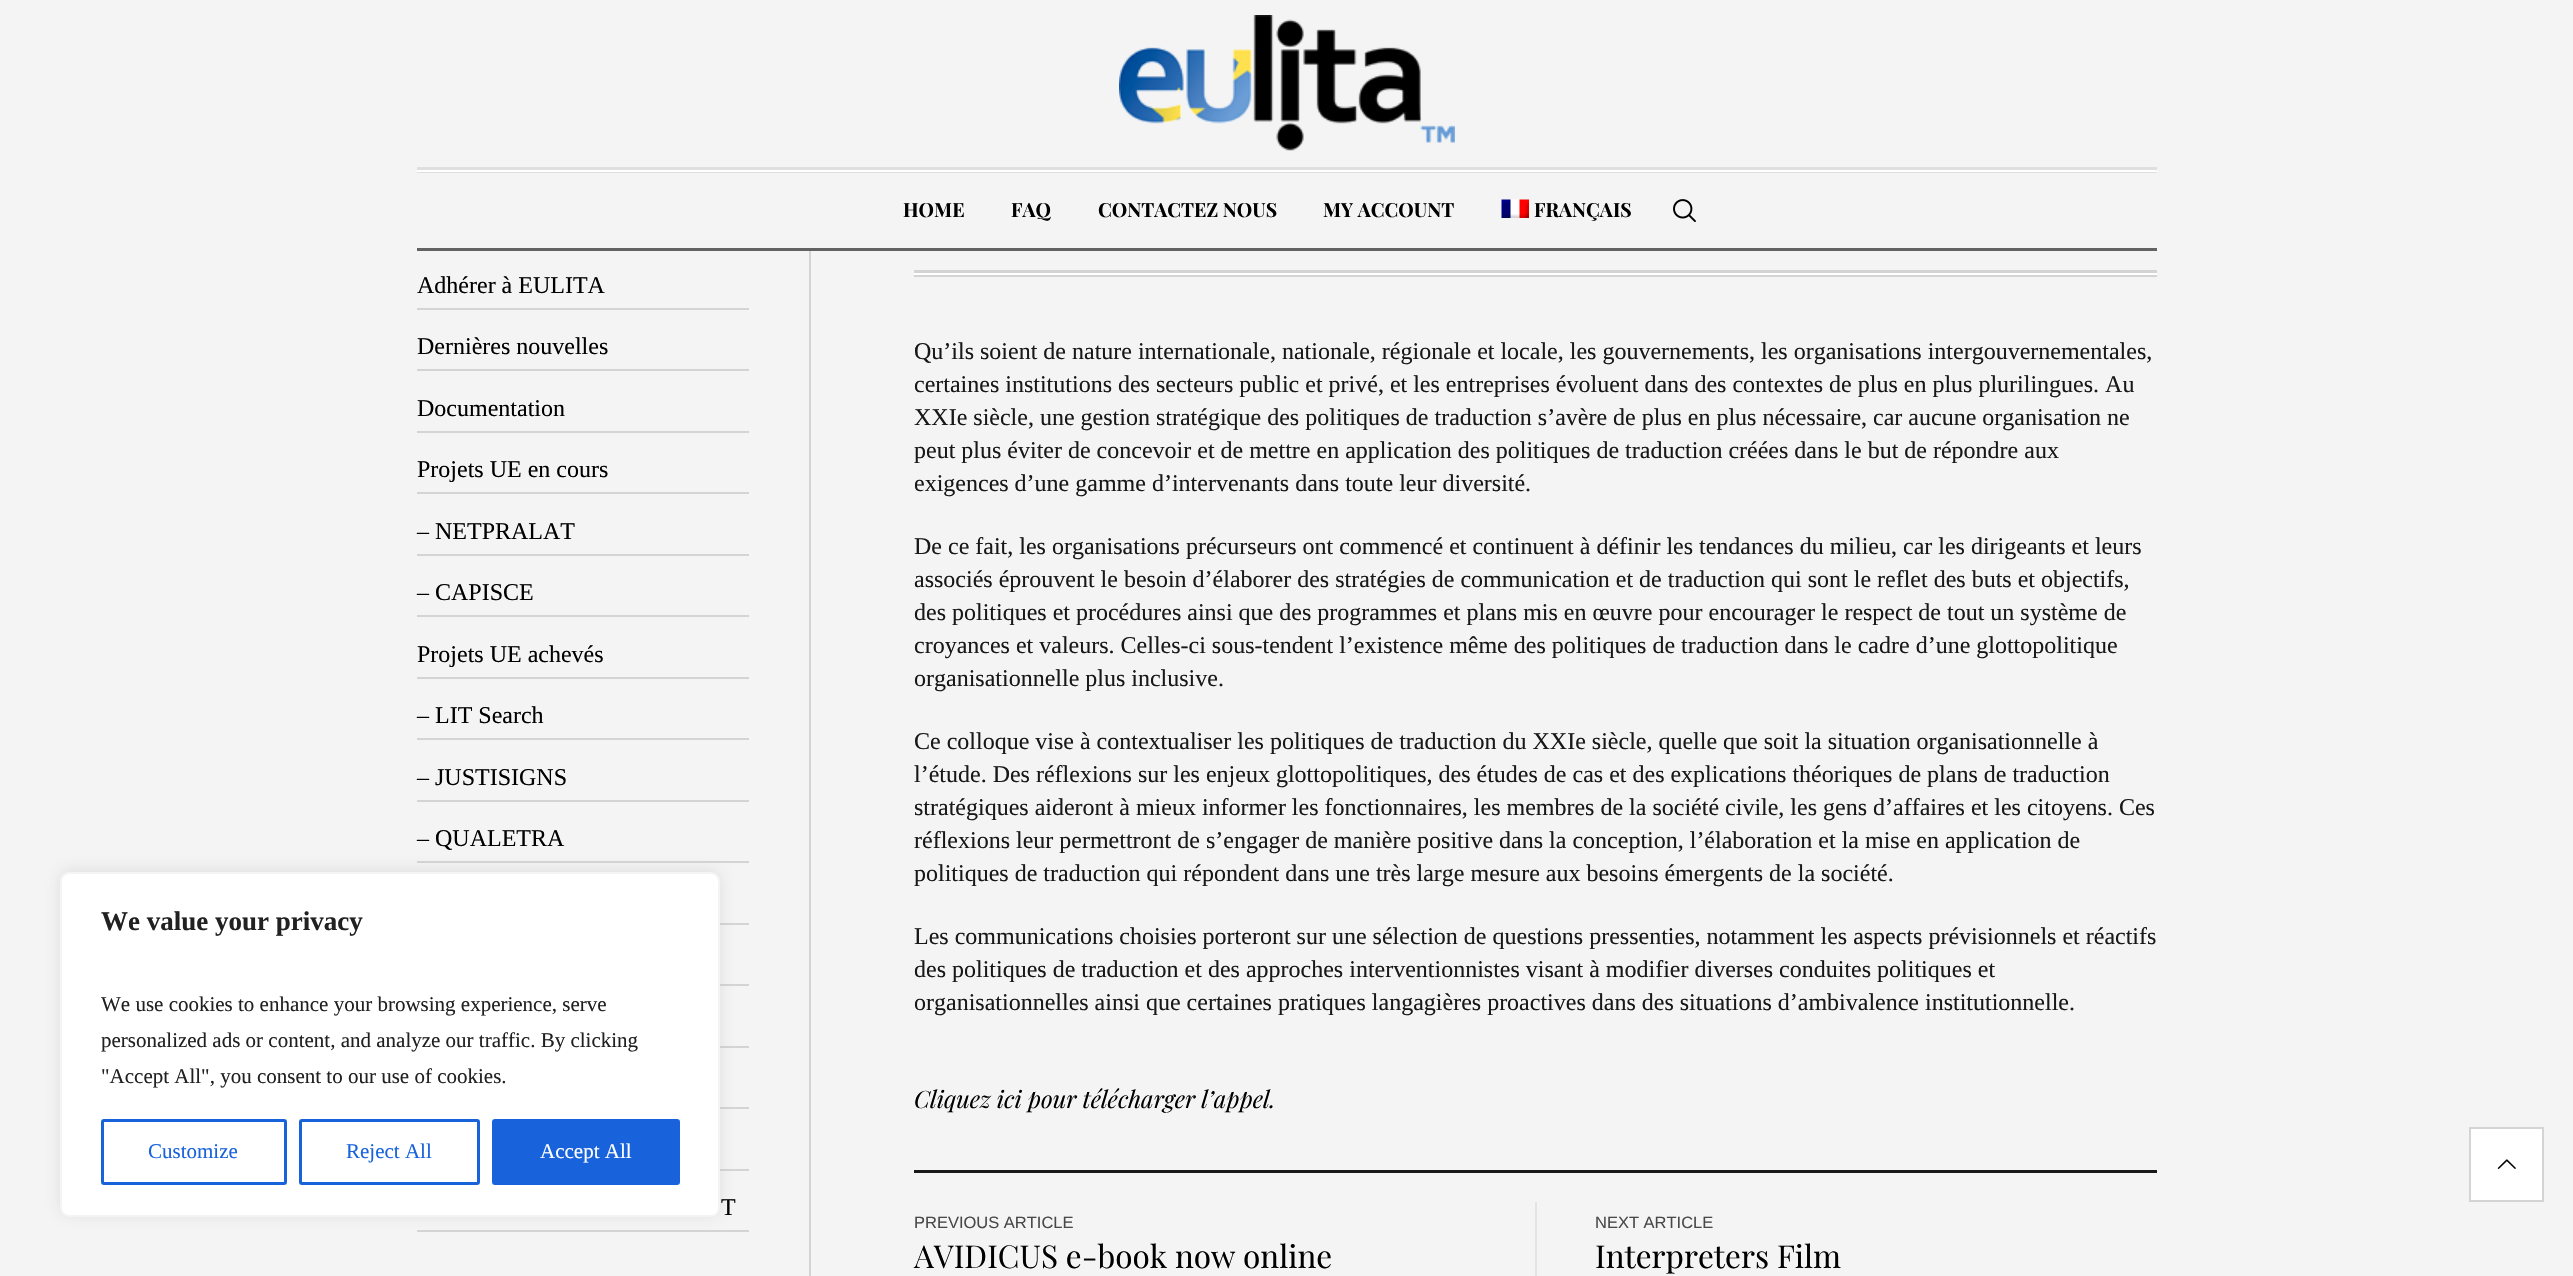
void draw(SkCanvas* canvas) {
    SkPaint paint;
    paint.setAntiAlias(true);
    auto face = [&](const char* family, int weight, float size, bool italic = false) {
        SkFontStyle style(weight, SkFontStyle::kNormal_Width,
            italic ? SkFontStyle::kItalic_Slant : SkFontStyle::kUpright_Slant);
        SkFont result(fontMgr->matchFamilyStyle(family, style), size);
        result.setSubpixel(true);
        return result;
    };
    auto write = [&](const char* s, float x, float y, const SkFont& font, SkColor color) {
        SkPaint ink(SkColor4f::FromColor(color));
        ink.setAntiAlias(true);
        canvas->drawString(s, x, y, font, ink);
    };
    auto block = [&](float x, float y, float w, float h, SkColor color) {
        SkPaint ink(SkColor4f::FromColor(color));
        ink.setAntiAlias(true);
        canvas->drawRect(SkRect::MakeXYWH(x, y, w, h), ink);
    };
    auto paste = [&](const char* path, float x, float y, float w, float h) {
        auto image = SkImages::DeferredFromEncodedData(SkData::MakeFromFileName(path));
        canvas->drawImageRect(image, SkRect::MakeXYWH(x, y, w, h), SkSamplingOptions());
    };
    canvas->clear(SkColorSetRGB(244, 244, 244));
    block(417, 861, 332, 2, SkColorSetRGB(212, 212, 212));
    block(720, 923, 29, 2, SkColorSetRGB(212, 212, 212));
    block(720, 984, 29, 2, SkColorSetRGB(212, 212, 212));
    block(720, 1046, 29, 2, SkColorSetRGB(212, 212, 212));
    block(720, 1107, 29, 2, SkColorSetRGB(212, 212, 212));
    block(720, 1169, 29, 2, SkColorSetRGB(212, 212, 212));
    block(417, 1230, 332, 2, SkColorSetRGB(212, 212, 212));
    paint.setColor(SkColorSetARGB(77, 172, 171, 171));
    paint.setMaskFilter(SkMaskFilter::MakeBlur(kNormal_SkBlurStyle, 7.5f));
    canvas->drawRoundRect(SkRect::MakeXYWH(60, 870, 660, 345), 9, 9, paint);
    paint.setMaskFilter(nullptr);
    paint.setColor(SK_ColorWHITE);
    canvas->drawRoundRect(SkRect::MakeXYWH(61, 873, 658, 343), 8, 8, paint);
    paint.setStyle(SkPaint::kStroke_Style);
    paint.setStrokeWidth(2);
    paint.setColor(SkColorSetRGB(244, 244, 244));
    canvas->drawRoundRect(SkRect::MakeXYWH(61, 873, 658, 343), 8, 8, paint);
    auto kFont1 = face("Liberation Serif", 700, 27);
    write("We value your privacy", 101, 930, kFont1, SkColorSetRGB(33, 33, 33));
    auto kFont2 = face("Liberation Serif", 400, 21);
    write("We use cookies to enhance your browsing experience, serve", 101, 1011, kFont2, SkColorSetRGB(33, 33, 33));
    write("personalized ads or content, and analyze our traffic. By clicking", 101, 1047, kFont2, SkColorSetRGB(33, 33, 33));
    write("\"Accept All\", you consent to our use of cookies.", 101, 1083, kFont2, SkColorSetRGB(33, 33, 33));
    paint.setStrokeWidth(3);
    paint.setColor(SkColorSetRGB(24, 99, 220));
    canvas->drawRoundRect(SkRect::MakeXYWH(102.5f, 1120.5f, 183, 63), 1.5f, 1.5f, paint);
    write("Customize", 148, 1158, kFont2, SkColorSetRGB(24, 99, 220));
    canvas->drawRoundRect(SkRect::MakeXYWH(300.5f, 1120.5f, 178, 63), 1.5f, 1.5f, paint);
    write("Reject All", 346, 1158, kFont2, SkColorSetRGB(24, 99, 220));
    paint.setStyle(SkPaint::kFill_Style);
    canvas->drawRoundRect(SkRect::MakeXYWH(493.5f, 1120.5f, 185, 63), 1.5f, 1.5f, paint);
    paint.setStyle(SkPaint::kStroke_Style);
    canvas->drawRoundRect(SkRect::MakeXYWH(493.5f, 1120.5f, 185, 63), 1.5f, 1.5f, paint);
    write("Accept All", 540, 1158, kFont2, SK_ColorWHITE);
    paste("pic1.png", 1119, 15, 336, 136);
    block(417, 172, 1740, 1, SkColorSetRGB(223, 223, 223));
    block(417, 170, 1740, 2, SK_ColorWHITE);
    block(417, 167, 1740, 3, SkColorSetRGB(223, 223, 223));
    block(417, 248, 1740, 3, SkColorSetRGB(98, 98, 98));
    auto kFont3 = face("Playfair Display", 700, 19.5f);
    write("HOME", 903, 217, kFont3, SK_ColorBLACK);
    write("FAQ", 1011, 217, kFont3, SK_ColorBLACK);
    write("CONTACTEZ NOUS", 1098, 217, kFont3, SK_ColorBLACK);
    write("MY ACCOUNT", 1323, 217, kFont3, SK_ColorBLACK);
    paste("pic2.png", 1501, 199, 28, 19);
    write("FRANÇAIS", 1534, 217, kFont3, SK_ColorBLACK);
    paste("pic3.png", 1673, 199, 23, 23);
    block(417, 308, 332, 2, SkColorSetRGB(212, 212, 212));
    auto kFont4 = face("Liberation Serif", 400, 24);
    write("Adhérer à EULITA", 417, 293, kFont4, SK_ColorBLACK);
    block(417, 369, 332, 2, SkColorSetRGB(212, 212, 212));
    write("Dernières nouvelles", 417, 354, kFont4, SK_ColorBLACK);
    block(417, 431, 332, 2, SkColorSetRGB(212, 212, 212));
    write("Documentation", 417, 416, kFont4, SK_ColorBLACK);
    block(417, 492, 332, 2, SkColorSetRGB(212, 212, 212));
    write("Projets UE en cours", 417, 477, kFont4, SK_ColorBLACK);
    block(417, 554, 332, 2, SkColorSetRGB(212, 212, 212));
    write("– NETPRALAT", 417, 539, kFont4, SK_ColorBLACK);
    block(417, 615, 332, 2, SkColorSetRGB(212, 212, 212));
    write("– CAPISCE", 417, 600, kFont4, SK_ColorBLACK);
    block(417, 677, 332, 2, SkColorSetRGB(212, 212, 212));
    write("Projets UE achevés", 417, 662, kFont4, SK_ColorBLACK);
    block(417, 738, 332, 2, SkColorSetRGB(212, 212, 212));
    write("– LIT Search", 417, 723, kFont4, SK_ColorBLACK);
    block(417, 800, 332, 2, SkColorSetRGB(212, 212, 212));
    write("– JUSTISIGNS", 417, 785, kFont4, SK_ColorBLACK);
    write("– QUALETRA", 417, 846, kFont4, SK_ColorBLACK);
    write("T", 721, 1215, kFont4, SK_ColorBLACK);
    block(809, 251, 2, 1025, SkColorSetRGB(212, 212, 212));
    block(914, 270, 1243, 3, SkColorSetRGB(212, 212, 212));
    block(914, 273, 1243, 2, SK_ColorWHITE);
    block(914, 275, 1243, 2, SkColorSetRGB(212, 212, 212));
    write("Qu’ils soient de nature internationale, nationale, régionale et locale, les gouvernements, les organisations intergouvernementales,", 914, 359, kFont4, SkColorSetRGB(24, 24, 24));
    write("certaines institutions des secteurs public et privé, et les entreprises évoluent dans des contextes de plus en plus plurilingues. Au", 914, 392, kFont4, SkColorSetRGB(24, 24, 24));
    write("XXIe siècle, une gestion stratégique des politiques de traduction s’avère de plus en plus nécessaire, car aucune organisation ne", 914, 425, kFont4, SkColorSetRGB(24, 24, 24));
    write("peut plus éviter de concevoir et de mettre en application des politiques de traduction créées dans le but de répondre aux", 914, 458, kFont4, SkColorSetRGB(24, 24, 24));
    write("exigences d’une gamme d’intervenants dans toute leur diversité.", 914, 491, kFont4, SkColorSetRGB(24, 24, 24));
    write("De ce fait, les organisations précurseurs ont commencé et continuent à définir les tendances du milieu, car les dirigeants et leurs", 914, 554, kFont4, SkColorSetRGB(24, 24, 24));
    write("associés éprouvent le besoin d’élaborer des stratégies de communication et de traduction qui sont le reflet des buts et objectifs,", 914, 587, kFont4, SkColorSetRGB(24, 24, 24));
    write("des politiques et procédures ainsi que des programmes et plans mis en œuvre pour encourager le respect de tout un système de", 914, 620, kFont4, SkColorSetRGB(24, 24, 24));
    write("croyances et valeurs. Celles-ci sous-tendent l’existence même des politiques de traduction dans le cadre d’une glottopolitique", 914, 653, kFont4, SkColorSetRGB(24, 24, 24));
    write("organisationnelle plus inclusive.", 914, 686, kFont4, SkColorSetRGB(24, 24, 24));
    write("Ce colloque vise à contextualiser les politiques de traduction du XXIe siècle, quelle que soit la situation organisationnelle à", 914, 749, kFont4, SkColorSetRGB(24, 24, 24));
    write("l’étude. Des réflexions sur les enjeux glottopolitiques, des études de cas et des explications théoriques de plans de traduction", 914, 782, kFont4, SkColorSetRGB(24, 24, 24));
    write("stratégiques aideront à mieux informer les fonctionnaires, les membres de la société civile, les gens d’affaires et les citoyens. Ces", 914, 815, kFont4, SkColorSetRGB(24, 24, 24));
    write("réflexions leur permettront de s’engager de manière positive dans la conception, l’élaboration et la mise en application de", 914, 848, kFont4, SkColorSetRGB(24, 24, 24));
    write("politiques de traduction qui répondent dans une très large mesure aux besoins émergents de la société.", 914, 881, kFont4, SkColorSetRGB(24, 24, 24));
    write("Les communications choisies porteront sur une sélection de questions pressenties, notamment les aspects prévisionnels et réactifs", 914, 944, kFont4, SkColorSetRGB(24, 24, 24));
    write("des politiques de traduction et des approches interventionnistes visant à modifier diverses conduites politiques et", 914, 977, kFont4, SkColorSetRGB(24, 24, 24));
    write("organisationnelles ainsi que certaines pratiques langagières proactives dans des situations d’ambivalence institutionnelle.", 914, 1010, kFont4, SkColorSetRGB(24, 24, 24));
    auto kFont5 = face("Playfair Display", 400, 24, true);
    write("Cliquez ici pour télécharger l’appel.", 914, 1108, kFont5, SK_ColorBLACK);
    block(914, 1170, 1243, 3, SkColorSetRGB(24, 24, 24));
    auto kFont6 = face("Liberation Sans", 400, 16.5f);
    write("PREVIOUS ARTICLE", 914, 1228, kFont6, SkColorSetRGB(73, 73, 73));
    auto kFont7 = face("Playfair Display", 400, 31.5f);
    write("AVIDICUS e-book now online", 914, 1268, kFont7, SK_ColorBLACK);
    block(1535, 1202, 2, 74, SkColorSetRGB(228, 228, 228));
    write("NEXT ARTICLE", 1595, 1228, kFont6, SkColorSetRGB(73, 73, 73));
    write("Interpreters Film", 1595, 1268, kFont7, SK_ColorBLACK);
    paint.setStyle(SkPaint::kFill_Style);
    paint.setColor(SK_ColorWHITE);
    canvas->drawRect(SkRect::MakeXYWH(2470, 1128, 73, 73), paint);
    paint.setStyle(SkPaint::kStroke_Style);
    paint.setStrokeWidth(2);
    paint.setColor(SkColorSetRGB(212, 212, 212));
    canvas->drawRect(SkRect::MakeXYWH(2470, 1128, 73, 73), paint);
    paste("pic4.png", 2497, 1159, 19, 10);
}
